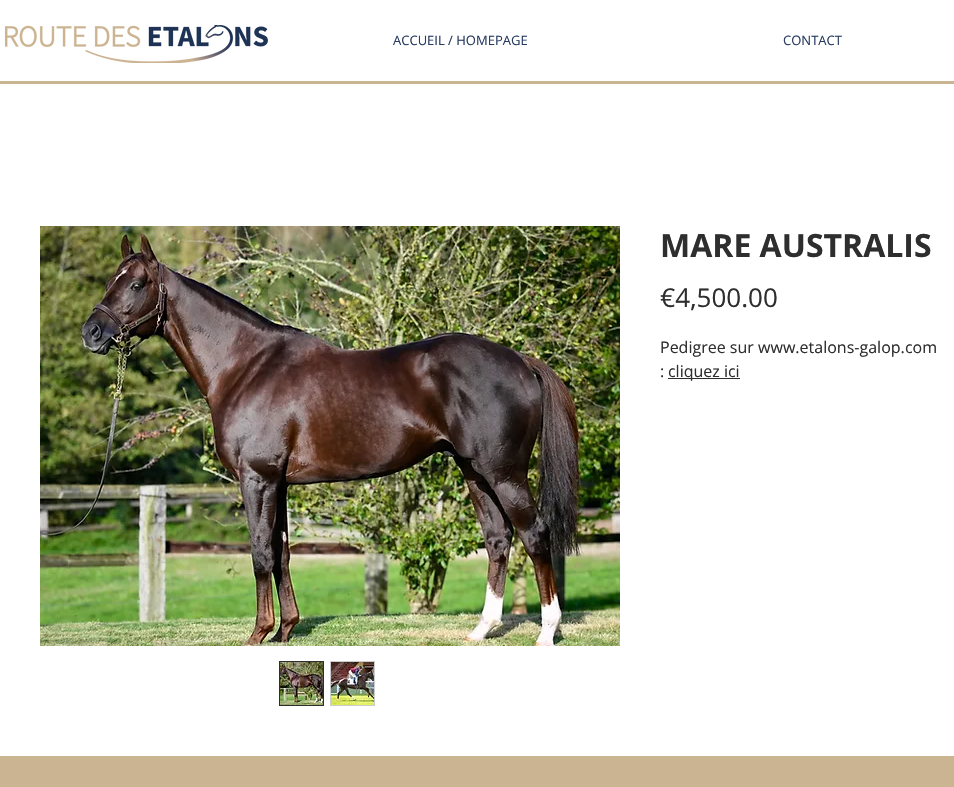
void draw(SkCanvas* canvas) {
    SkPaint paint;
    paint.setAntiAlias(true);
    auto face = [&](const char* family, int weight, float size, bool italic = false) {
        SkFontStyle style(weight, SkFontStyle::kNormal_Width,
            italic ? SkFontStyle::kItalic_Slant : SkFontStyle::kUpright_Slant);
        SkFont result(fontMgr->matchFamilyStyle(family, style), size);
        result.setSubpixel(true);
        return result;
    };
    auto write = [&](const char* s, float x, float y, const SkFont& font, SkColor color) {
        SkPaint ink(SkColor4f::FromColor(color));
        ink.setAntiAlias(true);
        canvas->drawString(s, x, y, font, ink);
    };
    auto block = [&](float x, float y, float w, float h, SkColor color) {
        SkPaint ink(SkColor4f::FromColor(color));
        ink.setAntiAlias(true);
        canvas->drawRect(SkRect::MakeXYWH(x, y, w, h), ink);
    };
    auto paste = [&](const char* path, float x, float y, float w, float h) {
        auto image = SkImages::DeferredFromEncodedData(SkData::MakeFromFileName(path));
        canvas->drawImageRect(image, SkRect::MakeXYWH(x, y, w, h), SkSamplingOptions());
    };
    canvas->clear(SK_ColorWHITE);
    paste("pic1.png", 5, 25, 263, 38);
    auto kFont1 = face("Open Sans", 400, 13);
    write("ACCUEIL / HOMEPAGE", 393, 45, kFont1, SkColorSetRGB(40, 59, 98));
    write("CONTACT", 783, 45, kFont1, SkColorSetRGB(40, 59, 98));
    block(0, 81, 954, 3, SkColorSetRGB(203, 180, 146));
    paste("pic2.png", 40, 226, 580, 420);
    paint.setStyle(SkPaint::kStroke_Style);
    paint.setStrokeWidth(1);
    paint.setColor(SkColorSetRGB(47, 46, 46));
    canvas->drawRect(SkRect::MakeXYWH(279.5f, 661.5f, 44, 44), paint);
    paste("pic3.png", 280, 662, 43, 43);
    block(330, 661, 45, 45, SkColorSetRGB(204, 204, 204));
    paste("pic4.png", 331, 662, 43, 43);
    auto kFont2 = face("Open Sans", 700, 32);
    write("MARE AUSTRALIS", 660, 257, kFont2, SkColorSetRGB(47, 46, 46));
    auto kFont3 = face("Open Sans", 400, 26);
    write("€4,500.00", 660, 307, kFont3, SkColorSetRGB(47, 46, 46));
    auto kFont4 = face("Open Sans", 400, 16);
    write("Pedigree sur www.etalons-galop.com", 660, 353, kFont4, SkColorSetRGB(47, 46, 46));
    write(":", 660, 377, kFont4, SkColorSetRGB(47, 46, 46));
    block(668, 378, 72, 1, SkColorSetRGB(47, 46, 46));
    write("cliquez ici", 668, 377, kFont4, SkColorSetRGB(47, 46, 46));
    block(0, 756, 954, 31, SkColorSetRGB(203, 180, 146));
}
